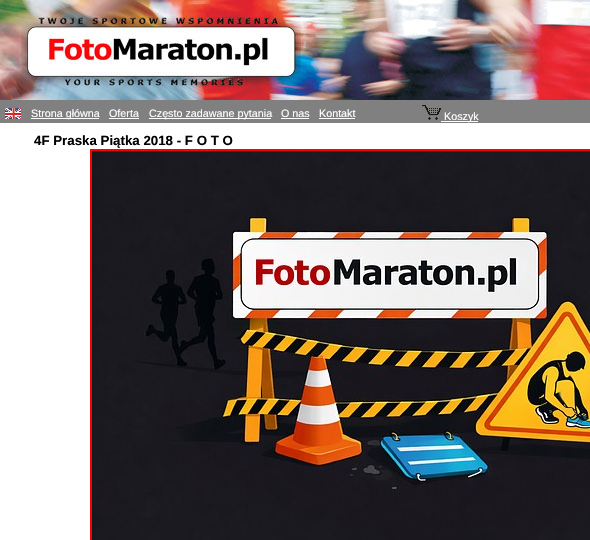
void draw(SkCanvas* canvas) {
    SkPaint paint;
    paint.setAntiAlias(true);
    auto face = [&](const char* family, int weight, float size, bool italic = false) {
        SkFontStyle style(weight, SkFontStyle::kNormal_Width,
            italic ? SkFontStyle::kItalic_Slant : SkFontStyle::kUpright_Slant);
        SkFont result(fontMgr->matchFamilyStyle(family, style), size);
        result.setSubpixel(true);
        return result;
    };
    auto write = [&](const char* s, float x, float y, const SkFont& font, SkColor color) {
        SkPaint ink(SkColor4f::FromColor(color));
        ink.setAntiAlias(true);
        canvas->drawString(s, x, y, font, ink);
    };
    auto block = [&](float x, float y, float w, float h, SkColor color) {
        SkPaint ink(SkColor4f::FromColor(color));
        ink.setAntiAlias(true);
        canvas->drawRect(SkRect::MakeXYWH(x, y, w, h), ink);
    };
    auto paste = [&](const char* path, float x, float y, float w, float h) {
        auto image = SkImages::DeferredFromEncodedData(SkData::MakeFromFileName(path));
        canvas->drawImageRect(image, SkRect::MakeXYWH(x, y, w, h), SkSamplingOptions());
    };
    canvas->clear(SK_ColorWHITE);
    paste("pic1.png", 0, 0, 590, 100);
    block(0, 100, 590, 23, SkColorSetRGB(128, 128, 128));
    paste("pic2.png", 5, 108, 16, 11);
    block(31, 118, 68, 1, SK_ColorWHITE);
    auto kFont1 = face("Liberation Sans", 400, 10.75f);
    write("Strona główna", 31, 117, kFont1, SK_ColorWHITE);
    write("Oferta", 109, 117, kFont1, SK_ColorWHITE);
    block(109, 118, 30, 1, SK_ColorWHITE);
    block(149, 118, 122, 1, SK_ColorWHITE);
    write("Często zadawane pytania", 149, 117, kFont1, SK_ColorWHITE);
    write("O nas", 281, 117, kFont1, SK_ColorWHITE);
    block(281, 118, 28, 1, SK_ColorWHITE);
    write("Kontakt", 319, 117, kFont1, SK_ColorWHITE);
    block(319, 118, 36, 1, SK_ColorWHITE);
    paste("pic3.png", 422, 105, 19, 15);
    block(441, 121, 37, 1, SK_ColorWHITE);
    write("Koszyk", 444, 120, kFont1, SK_ColorWHITE);
    auto kFont2 = face("Liberation Sans", 700, 13.3f);
    write("4F Praska Piątka 2018 - F O T O", 34, 145, kFont2, SK_ColorBLACK);
    block(90, 149, 500, 391, SkColorSetRGB(255, 0, 0));
    paste("pic4.png", 92, 151, 498, 389);
}
